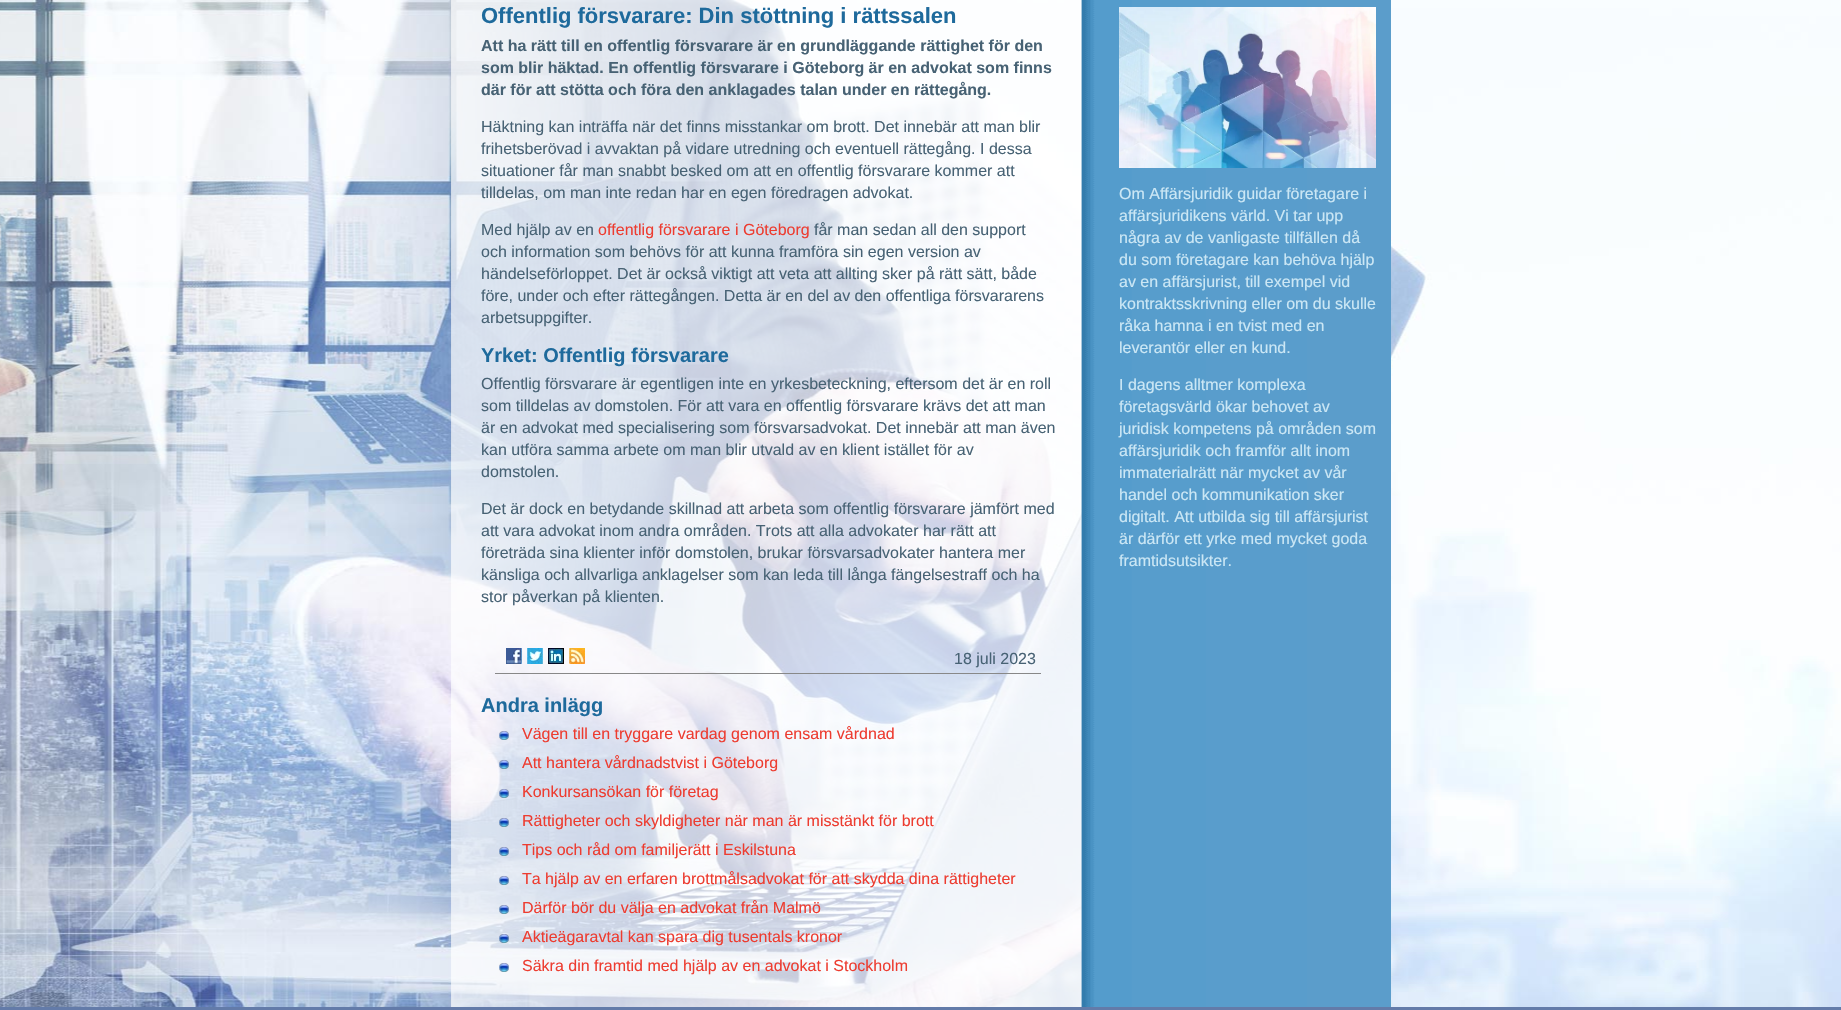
void draw(SkCanvas* canvas) {
    SkPaint paint;
    paint.setAntiAlias(true);
    auto face = [&](const char* family, int weight, float size, bool italic = false) {
        SkFontStyle style(weight, SkFontStyle::kNormal_Width,
            italic ? SkFontStyle::kItalic_Slant : SkFontStyle::kUpright_Slant);
        SkFont result(fontMgr->matchFamilyStyle(family, style), size);
        result.setSubpixel(true);
        return result;
    };
    auto write = [&](const char* s, float x, float y, const SkFont& font, SkColor color) {
        SkPaint ink(SkColor4f::FromColor(color));
        ink.setAntiAlias(true);
        canvas->drawString(s, x, y, font, ink);
    };
    auto block = [&](float x, float y, float w, float h, SkColor color) {
        SkPaint ink(SkColor4f::FromColor(color));
        ink.setAntiAlias(true);
        canvas->drawRect(SkRect::MakeXYWH(x, y, w, h), ink);
    };
    auto paste = [&](const char* path, float x, float y, float w, float h) {
        auto image = SkImages::DeferredFromEncodedData(SkData::MakeFromFileName(path));
        canvas->drawImageRect(image, SkRect::MakeXYWH(x, y, w, h), SkSamplingOptions());
    };
    canvas->clear(SK_ColorWHITE);
    paste("pic1.png", 0, 0, 1841, 1007);
    paste("pic2.png", 451, 0, 940, 1007);
    auto kFont1 = face("Liberation Sans", 700, 22);
    write("Offentlig försvarare: Din stöttning i rättssalen", 481, 23, kFont1, SkColorSetRGB(30, 106, 156));
    auto kFont2 = face("Liberation Sans", 700, 16);
    write("Att ha rätt till en offentlig försvarare är en grundläggande rättighet för den", 481, 51, kFont2, SkColorSetRGB(71, 98, 116));
    write("som blir häktad. En offentlig försvarare i Göteborg är en advokat som finns", 481, 73, kFont2, SkColorSetRGB(71, 98, 116));
    write("där för att stötta och föra den anklagades talan under en rättegång.", 481, 95, kFont2, SkColorSetRGB(71, 98, 116));
    auto kFont3 = face("Liberation Sans", 400, 16);
    write("Häktning kan inträffa när det finns misstankar om brott. Det innebär att man blir", 481, 132, kFont3, SkColorSetRGB(71, 98, 116));
    write("frihetsberövad i avvaktan på vidare utredning och eventuell rättegång. I dessa", 481, 154, kFont3, SkColorSetRGB(71, 98, 116));
    write("situationer får man snabbt besked om att en offentlig försvarare kommer att", 481, 176, kFont3, SkColorSetRGB(71, 98, 116));
    write("tilldelas, om man inte redan har en egen föredragen advokat.", 481, 198, kFont3, SkColorSetRGB(71, 98, 116));
    write("Med hjälp av en", 481, 235, kFont3, SkColorSetRGB(71, 98, 116));
    write("offentlig försvarare i Göteborg", 598, 235, kFont3, SkColorSetRGB(237, 60, 48));
    write("får man sedan all den support", 814, 235, kFont3, SkColorSetRGB(71, 98, 116));
    write("och information som behövs för att kunna framföra sin egen version av", 481, 257, kFont3, SkColorSetRGB(71, 98, 116));
    write("händelseförloppet. Det är också viktigt att veta att allting sker på rätt sätt, både", 481, 279, kFont3, SkColorSetRGB(71, 98, 116));
    write("före, under och efter rättegången. Detta är en del av den offentliga försvararens", 481, 301, kFont3, SkColorSetRGB(71, 98, 116));
    write("arbetsuppgifter.", 481, 323, kFont3, SkColorSetRGB(71, 98, 116));
    auto kFont4 = face("Liberation Sans", 700, 20);
    write("Yrket: Offentlig försvarare", 481, 362, kFont4, SkColorSetRGB(30, 106, 156));
    write("Offentlig försvarare är egentligen inte en yrkesbeteckning, eftersom det är en roll", 481, 389, kFont3, SkColorSetRGB(71, 98, 116));
    write("som tilldelas av domstolen. För att vara en offentlig försvarare krävs det att man", 481, 411, kFont3, SkColorSetRGB(71, 98, 116));
    write("är en advokat med specialisering som försvarsadvokat. Det innebär att man även", 481, 433, kFont3, SkColorSetRGB(71, 98, 116));
    write("kan utföra samma arbete om man blir utvald av en klient istället för av", 481, 455, kFont3, SkColorSetRGB(71, 98, 116));
    write("domstolen.", 481, 477, kFont3, SkColorSetRGB(71, 98, 116));
    write("Det är dock en betydande skillnad att arbeta som offentlig försvarare jämfört med", 481, 514, kFont3, SkColorSetRGB(71, 98, 116));
    write("att vara advokat inom andra områden. Trots att alla advokater har rätt att", 481, 536, kFont3, SkColorSetRGB(71, 98, 116));
    write("företräda sina klienter inför domstolen, brukar försvarsadvokater hantera mer", 481, 558, kFont3, SkColorSetRGB(71, 98, 116));
    write("känsliga och allvarliga anklagelser som kan leda till långa fängelsestraff och ha", 481, 580, kFont3, SkColorSetRGB(71, 98, 116));
    write("stor påverkan på klienten.", 481, 602, kFont3, SkColorSetRGB(71, 98, 116));
    paste("pic3.png", 506, 648, 16, 16);
    paste("pic4.png", 527, 648, 16, 16);
    paste("pic5.png", 548, 648, 16, 16);
    paste("pic6.png", 569, 648, 16, 16);
    write("18 juli 2023", 954, 664, kFont3, SkColorSetRGB(71, 98, 116));
    block(495, 673, 546, 1, SkColorSetRGB(136, 136, 136));
    write("Andra inlägg", 481, 712, kFont4, SkColorSetRGB(30, 106, 156));
    paste("pic7.png", 499, 731, 10, 9);
    write("Vägen till en tryggare vardag genom ensam vårdnad", 522, 739, kFont3, SkColorSetRGB(237, 60, 48));
    paste("pic8.png", 499, 760, 10, 9);
    write("Att hantera vårdnadstvist i Göteborg", 522, 768, kFont3, SkColorSetRGB(237, 60, 48));
    paste("pic9.png", 499, 789, 10, 9);
    write("Konkursansökan för företag", 522, 797, kFont3, SkColorSetRGB(237, 60, 48));
    paste("pic10.png", 499, 818, 10, 9);
    write("Rättigheter och skyldigheter när man är misstänkt för brott", 522, 826, kFont3, SkColorSetRGB(237, 60, 48));
    paste("pic11.png", 499, 847, 10, 9);
    write("Tips och råd om familjerätt i Eskilstuna", 522, 855, kFont3, SkColorSetRGB(237, 60, 48));
    paste("pic12.png", 499, 876, 10, 9);
    write("Ta hjälp av en erfaren brottmålsadvokat för att skydda dina rättigheter", 522, 884, kFont3, SkColorSetRGB(237, 60, 48));
    paste("pic13.png", 499, 905, 10, 9);
    write("Därför bör du välja en advokat från Malmö", 522, 913, kFont3, SkColorSetRGB(237, 60, 48));
    paste("pic14.png", 499, 934, 10, 9);
    write("Aktieägaravtal kan spara dig tusentals kronor", 522, 942, kFont3, SkColorSetRGB(237, 60, 48));
    paste("pic15.png", 499, 963, 10, 9);
    write("Säkra din framtid med hjälp av en advokat i Stockholm", 522, 971, kFont3, SkColorSetRGB(237, 60, 48));
    paste("pic16.png", 1119, 7, 257, 161);
    write("Om Affärsjuridik guidar företagare i", 1119, 199, kFont3, SkColorSetRGB(203, 231, 245));
    write("affärsjuridikens värld. Vi tar upp", 1119, 221, kFont3, SkColorSetRGB(203, 231, 245));
    write("några av de vanligaste tillfällen då", 1119, 243, kFont3, SkColorSetRGB(203, 231, 245));
    write("du som företagare kan behöva hjälp", 1119, 265, kFont3, SkColorSetRGB(203, 231, 245));
    write("av en affärsjurist, till exempel vid", 1119, 287, kFont3, SkColorSetRGB(203, 231, 245));
    write("kontraktsskrivning eller om du skulle", 1119, 309, kFont3, SkColorSetRGB(203, 231, 245));
    write("råka hamna i en tvist med en", 1119, 331, kFont3, SkColorSetRGB(203, 231, 245));
    write("leverantör eller en kund.", 1119, 353, kFont3, SkColorSetRGB(203, 231, 245));
    write("I dagens alltmer komplexa", 1119, 390, kFont3, SkColorSetRGB(203, 231, 245));
    write("företagsvärld ökar behovet av", 1119, 412, kFont3, SkColorSetRGB(203, 231, 245));
    write("juridisk kompetens på områden som", 1119, 434, kFont3, SkColorSetRGB(203, 231, 245));
    write("affärsjuridik och framför allt inom", 1119, 456, kFont3, SkColorSetRGB(203, 231, 245));
    write("immaterialrätt när mycket av vår", 1119, 478, kFont3, SkColorSetRGB(203, 231, 245));
    write("handel och kommunikation sker", 1119, 500, kFont3, SkColorSetRGB(203, 231, 245));
    write("digitalt. Att utbilda sig till affärsjurist", 1119, 522, kFont3, SkColorSetRGB(203, 231, 245));
    write("är därför ett yrke med mycket goda", 1119, 544, kFont3, SkColorSetRGB(203, 231, 245));
    write("framtidsutsikter.", 1119, 566, kFont3, SkColorSetRGB(203, 231, 245));
    block(0, 1007, 1841, 3, SkColorSetRGB(99, 123, 169));
}
